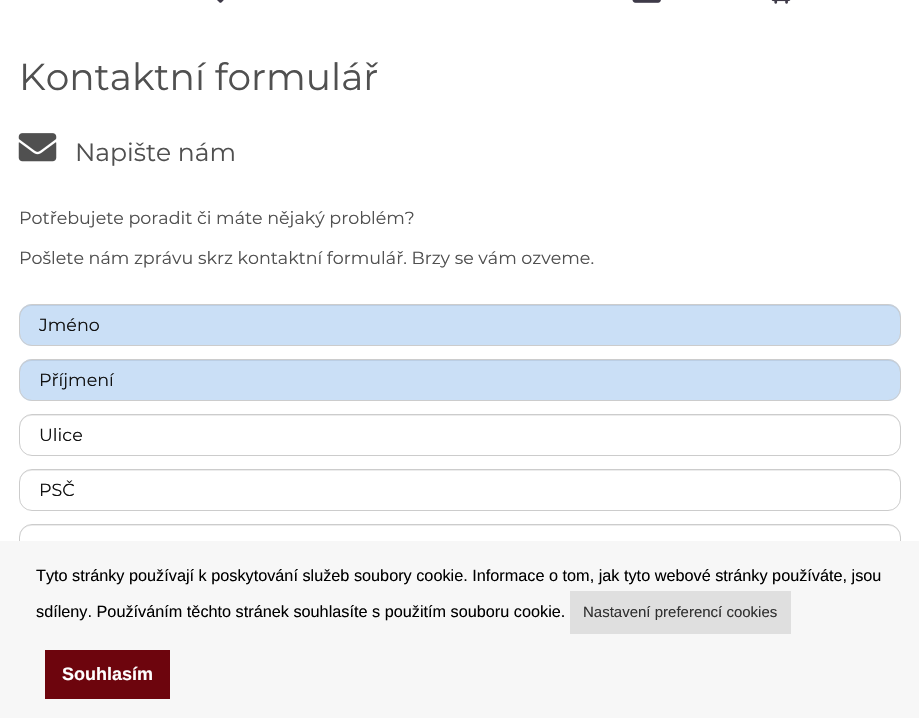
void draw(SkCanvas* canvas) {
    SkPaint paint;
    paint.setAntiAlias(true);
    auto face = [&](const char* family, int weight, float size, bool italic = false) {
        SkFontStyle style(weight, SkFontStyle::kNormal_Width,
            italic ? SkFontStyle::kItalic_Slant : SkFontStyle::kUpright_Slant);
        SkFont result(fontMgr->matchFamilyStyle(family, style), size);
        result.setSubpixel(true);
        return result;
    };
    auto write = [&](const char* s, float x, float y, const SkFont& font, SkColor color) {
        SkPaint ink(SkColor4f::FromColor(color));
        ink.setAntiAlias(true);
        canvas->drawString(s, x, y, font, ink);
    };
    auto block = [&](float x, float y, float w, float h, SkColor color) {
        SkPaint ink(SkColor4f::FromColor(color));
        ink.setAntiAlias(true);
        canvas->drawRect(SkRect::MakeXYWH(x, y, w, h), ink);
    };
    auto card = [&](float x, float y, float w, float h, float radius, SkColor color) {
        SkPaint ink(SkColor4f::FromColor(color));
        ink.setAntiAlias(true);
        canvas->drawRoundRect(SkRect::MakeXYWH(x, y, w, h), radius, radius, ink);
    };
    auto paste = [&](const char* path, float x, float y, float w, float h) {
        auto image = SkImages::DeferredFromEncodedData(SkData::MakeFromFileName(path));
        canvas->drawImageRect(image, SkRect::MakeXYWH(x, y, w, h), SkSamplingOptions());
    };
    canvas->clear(SK_ColorWHITE);
    paste("pic1.png", 217, 0, 7, 3);
    paste("pic2.png", 632, 0, 29, 3);
    paste("pic3.png", 771, 0, 20, 4);
    auto kFont1 = face("Montserrat", 400, 37.5f);
    write("Kontaktní formulář", 19, 90, kFont1, SkColorSetRGB(80, 80, 80));
    paste("pic4.png", 18, 133, 39, 29);
    auto kFont2 = face("Montserrat", 400, 25);
    write("Napište nám", 75, 161, kFont2, SkColorSetRGB(80, 80, 80));
    auto kFont3 = face("Montserrat", 400, 17.5f);
    write("Potřebujete poradit či máte nějaký problém?", 19, 224, kFont3, SkColorSetRGB(80, 80, 80));
    write("Pošlete nám zprávu skrz kontaktní formulář. Brzy se vám ozveme.", 19, 264, kFont3, SkColorSetRGB(80, 80, 80));
    card(19, 304, 882, 42, 13, SkColorSetRGB(202, 223, 246));
    paint.setColor(SkColorSetRGB(187, 206, 228));
    canvas->drawPath(SkPathBuilder().moveTo(31, 306).lineTo(889, 306).cubicTo(895, 306, 900, 311, 900, 318).lineTo(900, 316).cubicTo(900, 310, 895, 305, 889, 305).lineTo(31, 305).cubicTo(25, 305, 20, 310, 20, 316).lineTo(20, 318).cubicTo(20, 311, 25, 306, 31, 306).close().detach(), paint);
    paint.setStyle(SkPaint::kStroke_Style);
    paint.setStrokeWidth(1);
    paint.setColor(SkColorSetRGB(204, 204, 204));
    canvas->drawRoundRect(SkRect::MakeXYWH(19.5f, 304.5f, 881, 41), 12.5f, 12.5f, paint);
    write("Jméno", 39, 331, kFont3, SkColorSetRGB(17, 17, 17));
    card(19, 359, 882, 42, 13, SkColorSetRGB(202, 223, 246));
    paint.setStyle(SkPaint::kFill_Style);
    paint.setColor(SkColorSetRGB(187, 206, 228));
    canvas->drawPath(SkPathBuilder().moveTo(31, 361).lineTo(889, 361).cubicTo(895, 361, 900, 366, 900, 372).lineTo(900, 371).cubicTo(900, 365, 895, 360, 889, 360).lineTo(31, 360).cubicTo(25, 360, 20, 365, 20, 371).lineTo(20, 372).cubicTo(20, 366, 25, 361, 31, 361).close().detach(), paint);
    paint.setStyle(SkPaint::kStroke_Style);
    paint.setColor(SkColorSetRGB(204, 204, 204));
    canvas->drawRoundRect(SkRect::MakeXYWH(19.5f, 359.5f, 881, 41), 12.5f, 12.5f, paint);
    write("Příjmení", 39, 386, kFont3, SkColorSetRGB(17, 17, 17));
    paint.setStyle(SkPaint::kFill_Style);
    paint.setColor(SkColorSetRGB(236, 236, 236));
    canvas->drawPath(SkPathBuilder().moveTo(31, 416).lineTo(889, 416).cubicTo(895, 416, 900, 421, 900, 428).lineTo(900, 426).cubicTo(900, 420, 895, 415, 889, 415).lineTo(31, 415).cubicTo(25, 415, 20, 420, 20, 426).lineTo(20, 428).cubicTo(20, 421, 25, 416, 31, 416).close().detach(), paint);
    paint.setStyle(SkPaint::kStroke_Style);
    paint.setColor(SkColorSetRGB(204, 204, 204));
    canvas->drawRoundRect(SkRect::MakeXYWH(19.5f, 414.5f, 881, 41), 12.5f, 12.5f, paint);
    write("Ulice", 39, 441, kFont3, SkColorSetRGB(17, 17, 17));
    paint.setStyle(SkPaint::kFill_Style);
    paint.setColor(SkColorSetRGB(236, 236, 236));
    canvas->drawPath(SkPathBuilder().moveTo(31, 471).lineTo(889, 471).cubicTo(895, 471, 900, 476, 900, 482).lineTo(900, 481).cubicTo(900, 475, 895, 470, 889, 470).lineTo(31, 470).cubicTo(25, 470, 20, 475, 20, 481).lineTo(20, 482).cubicTo(20, 476, 25, 471, 31, 471).close().detach(), paint);
    paint.setStyle(SkPaint::kStroke_Style);
    paint.setColor(SkColorSetRGB(204, 204, 204));
    canvas->drawRoundRect(SkRect::MakeXYWH(19.5f, 469.5f, 881, 41), 12.5f, 12.5f, paint);
    write("PSČ", 39, 496, kFont3, SkColorSetRGB(17, 17, 17));
    paint.setStyle(SkPaint::kFill_Style);
    paint.setColor(SkColorSetRGB(236, 236, 236));
    canvas->drawPath(SkPathBuilder().moveTo(31, 526).lineTo(889, 526).cubicTo(895, 526, 900, 531, 900, 538).lineTo(900, 536).cubicTo(900, 530, 895, 525, 889, 525).lineTo(31, 525).cubicTo(25, 525, 20, 530, 20, 536).lineTo(20, 538).cubicTo(20, 531, 25, 526, 31, 526).close().detach(), paint);
    paint.setStyle(SkPaint::kStroke_Style);
    paint.setColor(SkColorSetRGB(204, 204, 204));
    canvas->drawRoundRect(SkRect::MakeXYWH(19.5f, 524.5f, 881, 41), 12.5f, 12.5f, paint);
    block(0, 541, 919, 177, SkColorSetRGB(247, 247, 247));
    auto kFont4 = face("Liberation Sans", 400, 16.25f);
    write("Tyto stránky používají k poskytování služeb soubory cookie. Informace o tom, jak tyto webové stránky používáte, jsou", 36, 581, kFont4, SK_ColorBLACK);
    write("sdíleny. Používáním těchto stránek souhlasíte s použitím souboru cookie.", 36, 617, kFont4, SK_ColorBLACK);
    block(570, 591, 221, 43, SkColorSetRGB(223, 223, 223));
    auto kFont5 = face("Liberation Sans", 400, 15);
    write("Nastavení preferencí cookies", 583, 617, kFont5, SkColorSetRGB(49, 49, 49));
    block(45, 650, 125, 49, SkColorSetRGB(109, 5, 13));
    auto kFont6 = face("Liberation Sans", 700, 18);
    write("Souhlasím", 62, 680, kFont6, SK_ColorWHITE);
}
